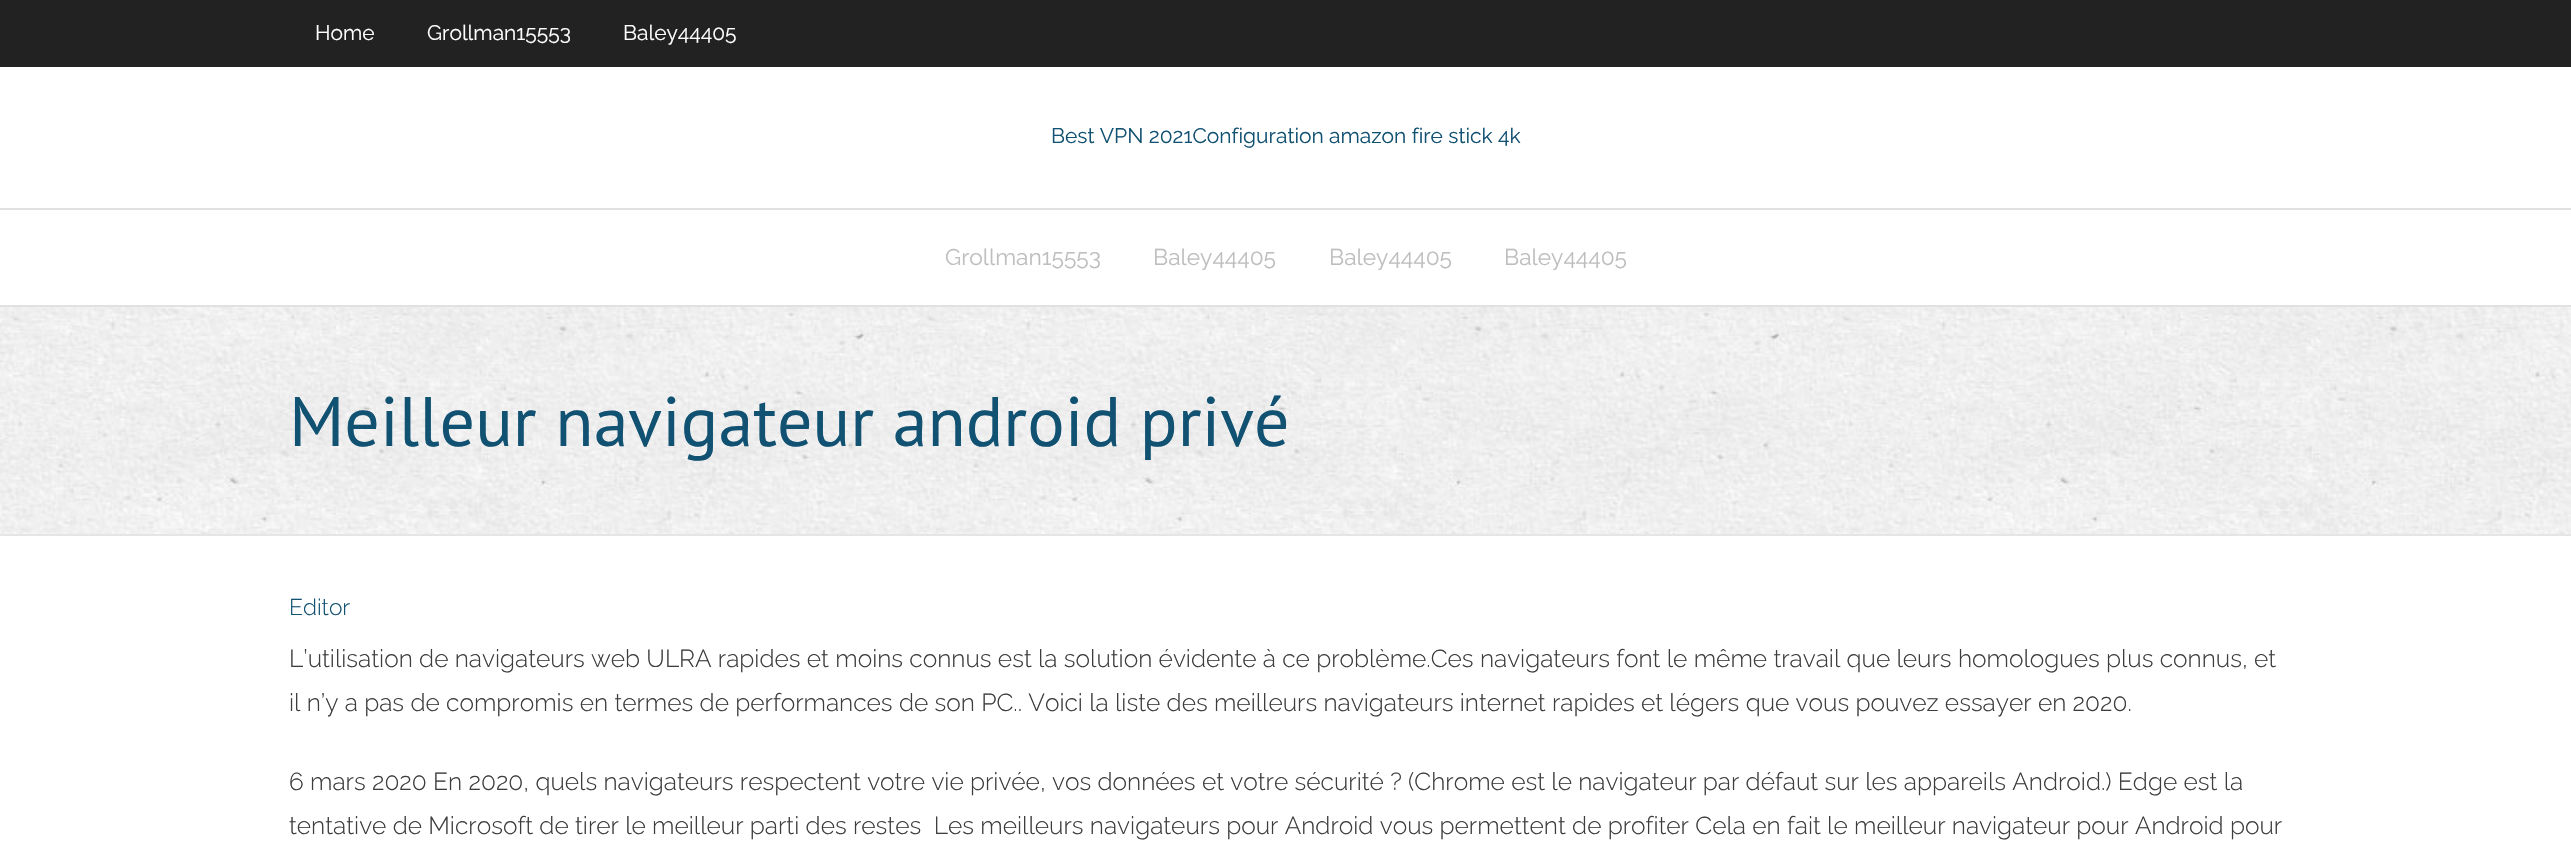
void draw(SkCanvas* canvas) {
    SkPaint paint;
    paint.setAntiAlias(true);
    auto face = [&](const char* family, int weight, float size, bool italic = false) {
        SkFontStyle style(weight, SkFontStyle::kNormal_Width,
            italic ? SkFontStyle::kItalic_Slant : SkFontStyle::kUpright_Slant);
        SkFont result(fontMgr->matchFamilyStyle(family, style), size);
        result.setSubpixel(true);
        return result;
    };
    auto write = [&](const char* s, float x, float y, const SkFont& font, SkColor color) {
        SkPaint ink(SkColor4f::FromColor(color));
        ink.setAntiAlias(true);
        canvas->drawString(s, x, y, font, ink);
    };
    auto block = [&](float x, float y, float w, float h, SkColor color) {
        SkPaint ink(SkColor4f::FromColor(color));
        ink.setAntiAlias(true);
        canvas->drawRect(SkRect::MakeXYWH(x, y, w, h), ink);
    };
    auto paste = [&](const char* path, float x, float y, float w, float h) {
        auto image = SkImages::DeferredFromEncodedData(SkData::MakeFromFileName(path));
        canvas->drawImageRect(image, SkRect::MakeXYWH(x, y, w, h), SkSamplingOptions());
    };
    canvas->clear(SK_ColorWHITE);
    block(0, 0, 2571, 67, SkColorSetRGB(34, 34, 34));
    auto kFont1 = face("Raleway", 400, 21);
    write("Home", 315, 40, kFont1, SK_ColorWHITE);
    write("Grollman15553", 427, 40, kFont1, SK_ColorWHITE);
    write("Baley44405", 623, 40, kFont1, SK_ColorWHITE);
    write("Best VPN 2021Configuration amazon fire stick 4k", 1051, 143, kFont1, SkColorSetRGB(17, 81, 114));
    block(0, 208, 2571, 2, SkColorSetRGB(225, 225, 225));
    block(0, 305, 2571, 2, SkColorSetRGB(225, 225, 225));
    auto kFont2 = face("Raleway", 400, 22.75f);
    write("Grollman15553", 945, 265, kFont2, SkColorSetRGB(190, 190, 190));
    write("Baley44405", 1153, 265, kFont2, SkColorSetRGB(190, 190, 190));
    write("Baley44405", 1329, 265, kFont2, SkColorSetRGB(190, 190, 190));
    write("Baley44405", 1504, 265, kFont2, SkColorSetRGB(190, 190, 190));
    paste("pic1.png", 0, 307, 2571, 227);
    block(0, 534, 2571, 2, SkColorSetRGB(229, 229, 229));
    auto kFont3 = face("PT Sans", 400, 70);
    write("Meilleur navigateur android privé", 289, 446, kFont3, SkColorSetRGB(17, 81, 114));
    auto kFont4 = face("Raleway", 300, 22.75f);
    write("Editor", 289, 615, kFont4, SkColorSetRGB(17, 81, 114));
    auto kFont5 = face("Raleway", 300, 24.5f);
    write("L’utilisation de navigateurs web ULRA rapides et moins connus est la solution évidente à ce problème.Ces navigateurs font le même travail que leurs homologues plus connus, et", 289, 667, kFont5, SkColorSetRGB(61, 61, 61));
    write("il n’y a pas de compromis en termes de performances de son PC.. Voici la liste des meilleurs navigateurs internet rapides et légers que vous pouvez essayer en 2020.", 289, 711, kFont5, SkColorSetRGB(61, 61, 61));
    write("6 mars 2020 En 2020, quels navigateurs respectent votre vie privée, vos données et votre sécurité ? (Chrome est le navigateur par défaut sur les appareils Android.) Edge est la", 289, 790, kFont5, SkColorSetRGB(61, 61, 61));
    write("tentative de Microsoft de tirer le meilleur parti des restes  Les meilleurs navigateurs pour Android vous permettent de profiter Cela en fait le meilleur navigateur pour Android pour", 289, 834, kFont5, SkColorSetRGB(61, 61, 61));
}
